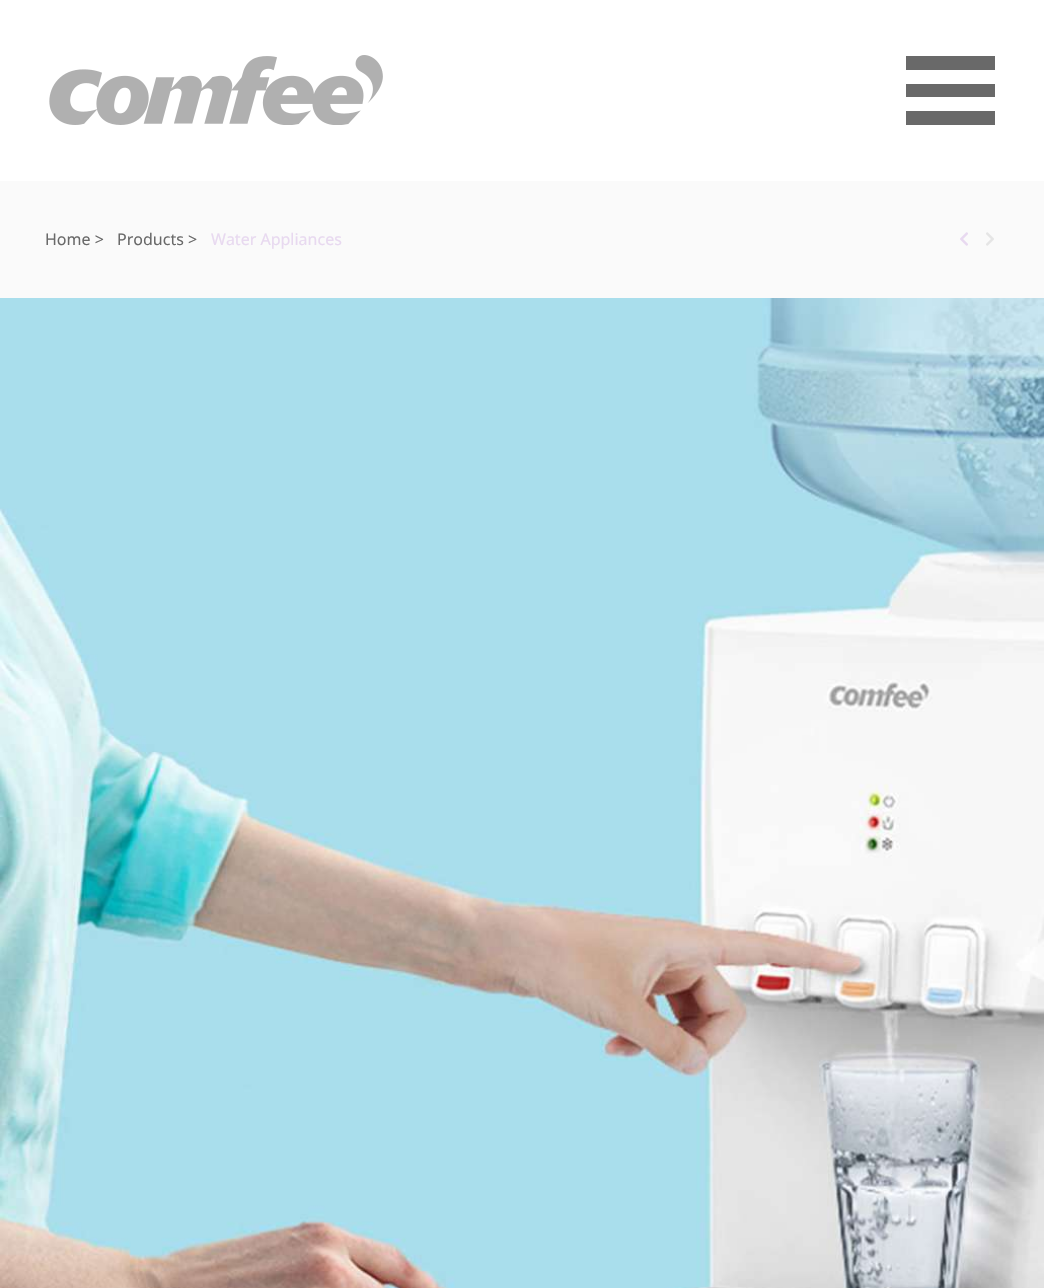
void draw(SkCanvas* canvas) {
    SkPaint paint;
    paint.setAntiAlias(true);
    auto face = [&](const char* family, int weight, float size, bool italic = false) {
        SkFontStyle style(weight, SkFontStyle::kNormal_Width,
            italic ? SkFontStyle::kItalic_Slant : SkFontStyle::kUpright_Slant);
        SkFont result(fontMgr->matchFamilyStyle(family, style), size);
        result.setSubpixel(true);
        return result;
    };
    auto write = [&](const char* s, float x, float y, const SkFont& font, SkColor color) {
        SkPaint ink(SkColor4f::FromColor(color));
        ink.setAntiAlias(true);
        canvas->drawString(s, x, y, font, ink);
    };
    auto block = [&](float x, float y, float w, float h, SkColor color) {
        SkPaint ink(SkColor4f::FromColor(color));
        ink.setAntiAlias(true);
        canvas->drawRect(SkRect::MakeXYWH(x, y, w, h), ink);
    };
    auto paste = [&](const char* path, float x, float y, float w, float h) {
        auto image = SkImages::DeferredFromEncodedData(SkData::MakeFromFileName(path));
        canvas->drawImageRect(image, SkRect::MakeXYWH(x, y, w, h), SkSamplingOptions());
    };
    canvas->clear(SK_ColorWHITE);
    paste("pic1.png", 49, 55, 334, 70);
    block(906, 56, 89, 14, SkColorSetRGB(105, 105, 105));
    block(906, 84, 89, 13, SkColorSetRGB(105, 105, 105));
    block(906, 111, 89, 14, SkColorSetRGB(105, 105, 105));
    block(0, 181, 1044, 117, SkColorSetRGB(250, 250, 250));
    auto kFont1 = face("Noto Sans", 400, 16);
    write("Home >", 45, 245, kFont1, SkColorSetRGB(105, 105, 105));
    write("Products >", 117, 245, kFont1, SkColorSetRGB(105, 105, 105));
    write("Water Appliances", 211, 245, kFont1, SkColorSetRGB(232, 217, 240));
    paste("pic2.png", 960, 232, 8, 14);
    paste("pic3.png", 986, 232, 8, 14);
    paste("pic4.png", 0, 298, 1044, 990);
}
